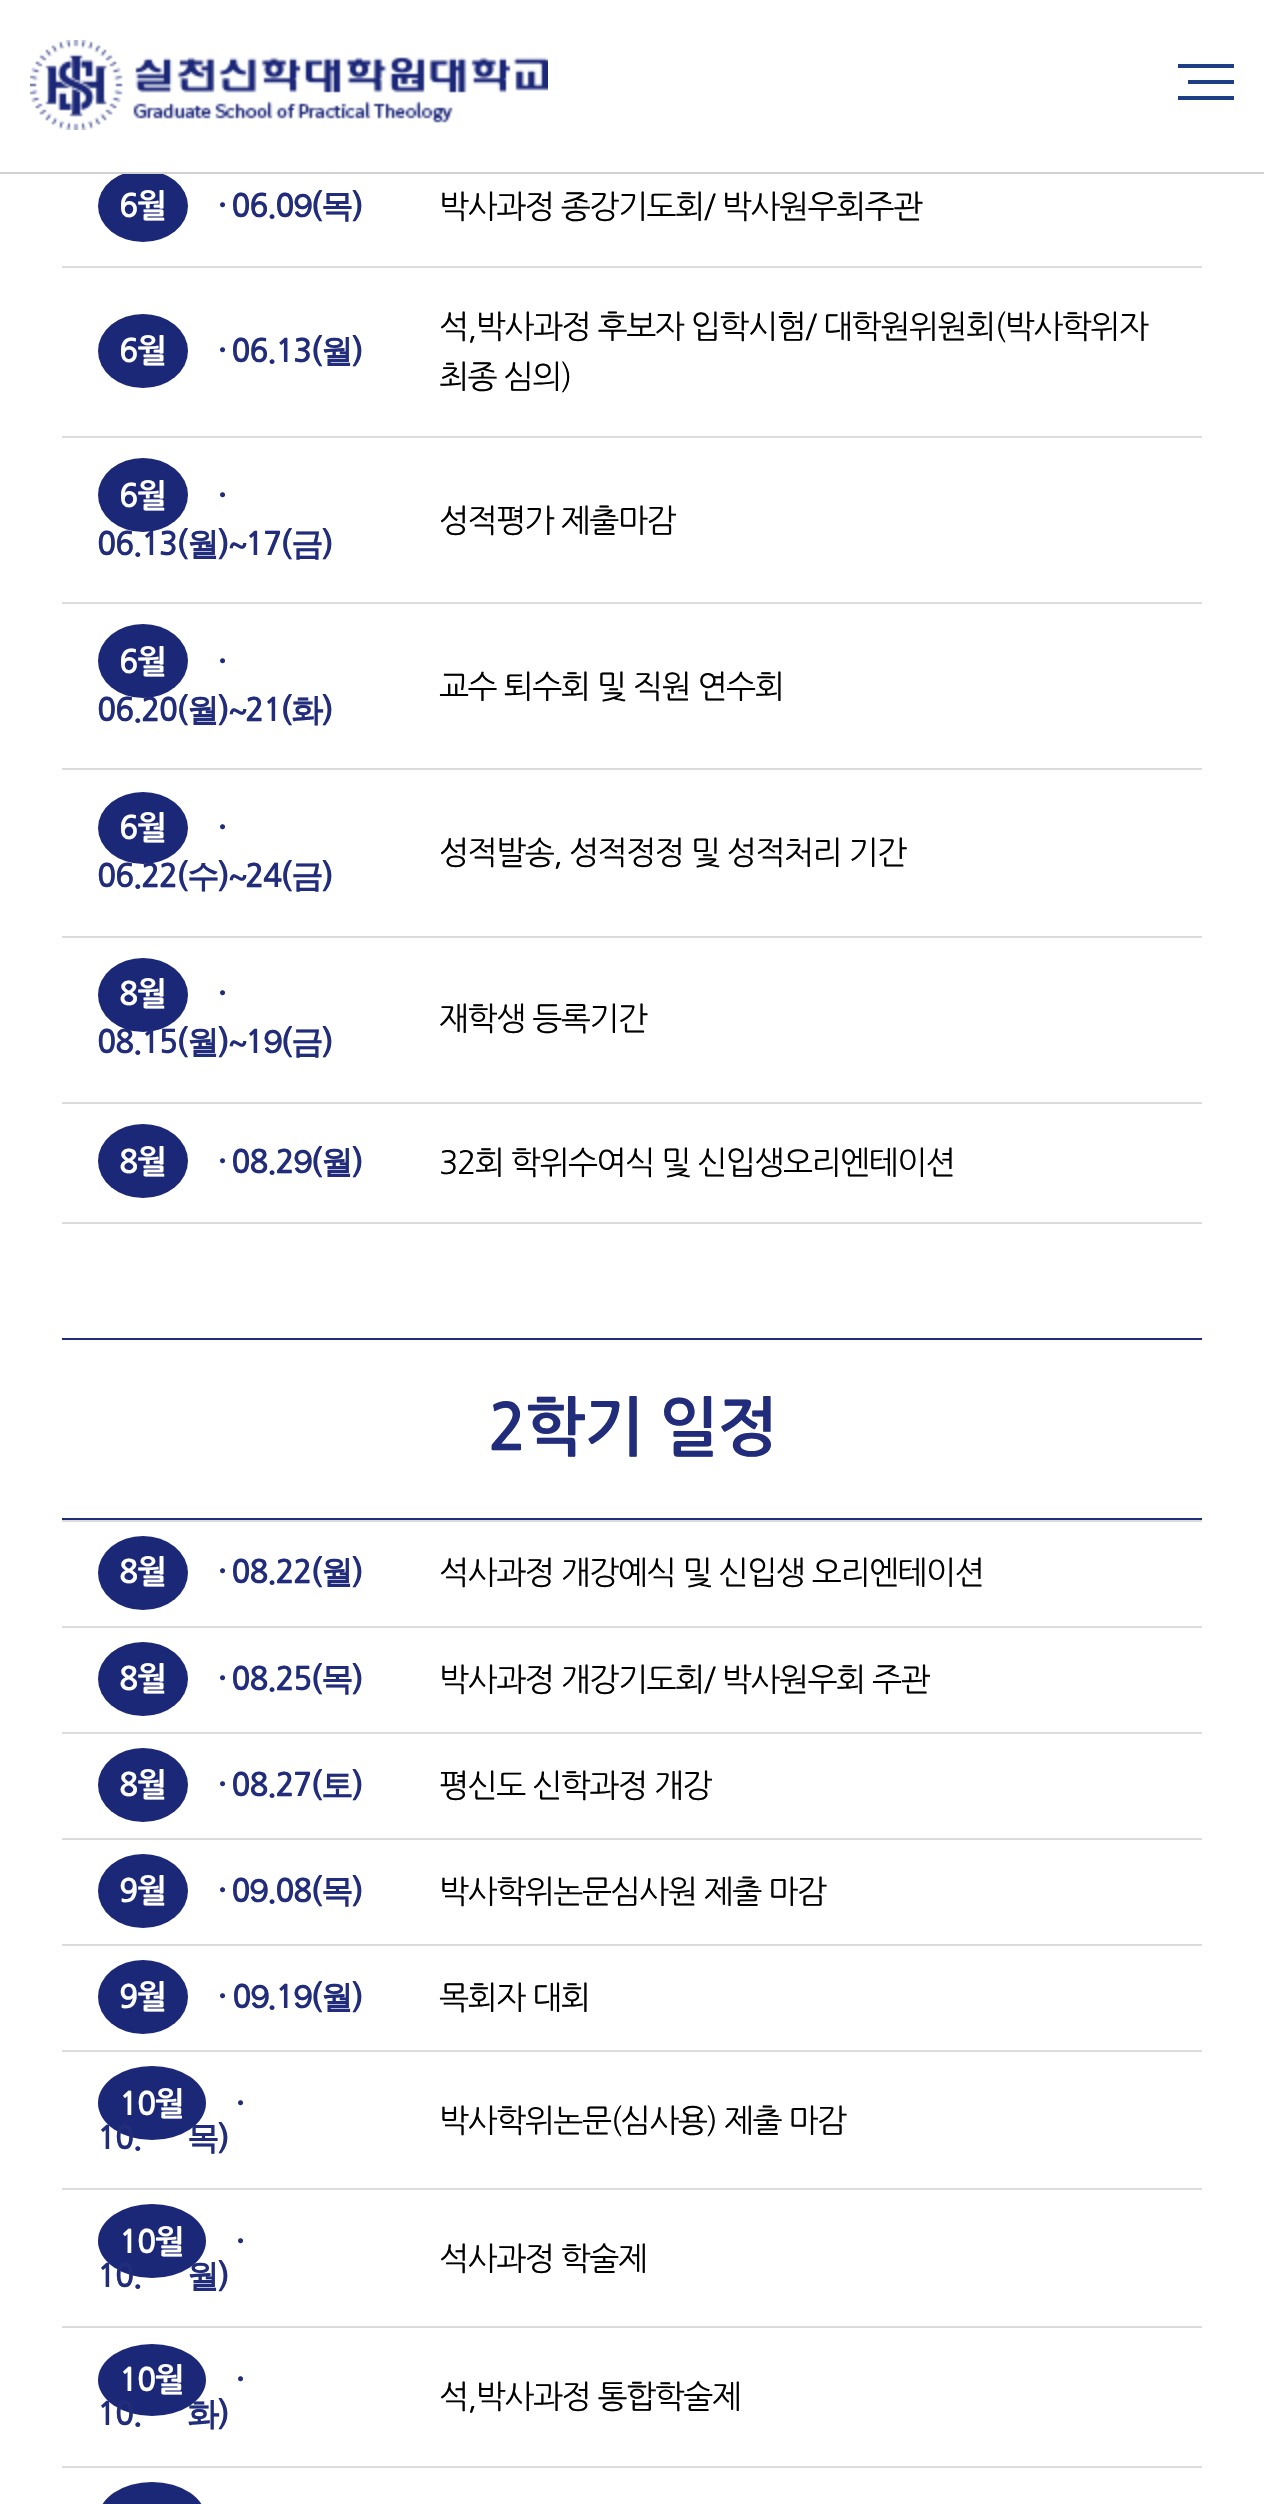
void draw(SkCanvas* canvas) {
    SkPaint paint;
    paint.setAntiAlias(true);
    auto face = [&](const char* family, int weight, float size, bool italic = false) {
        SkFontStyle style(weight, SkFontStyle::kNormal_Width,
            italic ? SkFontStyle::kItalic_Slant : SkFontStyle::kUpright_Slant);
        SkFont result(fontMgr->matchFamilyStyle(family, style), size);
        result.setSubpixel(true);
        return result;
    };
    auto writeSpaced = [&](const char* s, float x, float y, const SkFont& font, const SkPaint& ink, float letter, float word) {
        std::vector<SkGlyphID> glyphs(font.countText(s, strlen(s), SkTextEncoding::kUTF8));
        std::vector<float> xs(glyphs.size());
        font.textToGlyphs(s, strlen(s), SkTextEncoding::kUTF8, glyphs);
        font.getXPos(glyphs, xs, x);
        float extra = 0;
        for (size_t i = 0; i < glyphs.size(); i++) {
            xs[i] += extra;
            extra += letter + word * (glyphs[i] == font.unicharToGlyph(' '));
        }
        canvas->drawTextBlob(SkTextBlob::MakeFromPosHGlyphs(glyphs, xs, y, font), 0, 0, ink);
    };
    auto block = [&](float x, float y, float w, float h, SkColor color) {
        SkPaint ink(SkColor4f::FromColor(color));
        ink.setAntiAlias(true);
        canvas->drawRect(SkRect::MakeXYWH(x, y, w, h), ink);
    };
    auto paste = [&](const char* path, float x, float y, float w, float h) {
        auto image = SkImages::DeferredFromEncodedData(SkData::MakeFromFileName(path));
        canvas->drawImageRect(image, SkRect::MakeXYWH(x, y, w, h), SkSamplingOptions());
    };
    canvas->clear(SK_ColorWHITE);
    paint.setColor(SkColorSetRGB(27, 39, 119));
    canvas->drawOval(SkRect::MakeXYWH(98, 170, 90, 72), paint);
    block(128, 170, 30, 2, SK_ColorWHITE);
    block(0, 172, 1264, 2, SkColorSetRGB(209, 209, 209));
    paste("pic1.png", 30, 40, 518, 90);
    block(1178, 64, 56, 4, SkColorSetRGB(29, 62, 133));
    block(1188, 80, 46, 4, SkColorSetRGB(29, 62, 133));
    block(1178, 96, 56, 4, SkColorSetRGB(29, 62, 133));
    auto kFont1 = face("NanumGothic", 700, 32);
    paint.setColor(SK_ColorWHITE);
    writeSpaced("6월", 119, 217, kFont1, paint, -1.5f, 0);
    paint.setColor(SkColorSetRGB(33, 45, 123));
    writeSpaced("· 06.0", 218, 217, kFont1, paint, -1.5f, -2);
    auto kFont2 = face("WenQuanYi Zen Hei", 700, 32);
    writeSpaced("9", 293, 217, kFont2, paint, -1.5f, 0);
    writeSpaced("(", 311, 217, kFont1, paint, -1.5f, 0);
    writeSpaced("목", 321, 217, kFont2, paint, -1.5f, 0);
    writeSpaced(")", 352, 217, kFont1, paint, -1.5f, 0);
    auto kFont3 = face("NanumGothic", 400, 32);
    paint.setColor(SK_ColorBLACK);
    writeSpaced("박사과정 종강기도회/ 박사원우회주관", 439, 218, kFont3, paint, -1.5f, 0);
    paint.setColor(SkColorSetRGB(27, 39, 119));
    canvas->drawOval(SkRect::MakeXYWH(98, 314, 90, 74), paint);
    paint.setColor(SK_ColorWHITE);
    writeSpaced("6월", 119, 362, kFont1, paint, -1.5f, 0);
    paint.setColor(SkColorSetRGB(33, 45, 123));
    writeSpaced("· 06.13(", 218, 362, kFont1, paint, -1.5f, -2);
    writeSpaced("월", 321, 362, kFont2, paint, -1.5f, 0);
    writeSpaced(")", 352, 362, kFont1, paint, -1.5f, 0);
    block(62, 266, 1140, 2, SkColorSetRGB(220, 220, 220));
    paint.setColor(SK_ColorBLACK);
    writeSpaced("석,박사과정 후보자 입학시험/ 대학원위원회(박사학위자", 439, 338, kFont3, paint, -1.5f, 0);
    writeSpaced("최종 심의)", 439, 388, kFont3, paint, -1.5f, 0);
    paint.setColor(SkColorSetRGB(27, 39, 119));
    canvas->drawOval(SkRect::MakeXYWH(98, 458, 90, 74), paint);
    paint.setColor(SK_ColorWHITE);
    writeSpaced("6월", 119, 507, kFont1, paint, -1.5f, 0);
    paint.setColor(SkColorSetRGB(33, 45, 123));
    writeSpaced("·", 218, 507, kFont1, paint, -1.5f, 0);
    writeSpaced("06.13(", 97, 555, kFont1, paint, -1.5f, 0);
    writeSpaced("월", 187, 555, kFont2, paint, -1.5f, 0);
    writeSpaced(")", 218, 555, kFont1, paint, -1.5f, 0);
    writeSpaced("~", 228, 555, kFont2, paint, -1.5f, 0);
    writeSpaced("17(", 245, 555, kFont1, paint, -1.5f, 0);
    writeSpaced("금", 291, 555, kFont2, paint, -1.5f, 0);
    writeSpaced(")", 322, 555, kFont1, paint, -1.5f, 0);
    block(62, 436, 1140, 2, SkColorSetRGB(220, 220, 220));
    paint.setColor(SK_ColorBLACK);
    writeSpaced("성적평가 제출마감", 439, 532, kFont3, paint, -1.5f, 0);
    paint.setColor(SkColorSetRGB(27, 39, 119));
    canvas->drawOval(SkRect::MakeXYWH(98, 624, 90, 74), paint);
    paint.setColor(SK_ColorWHITE);
    writeSpaced("6월", 119, 673, kFont1, paint, -1.5f, 0);
    paint.setColor(SkColorSetRGB(33, 45, 123));
    writeSpaced("·", 218, 673, kFont1, paint, -1.5f, 0);
    writeSpaced("06.20(", 97, 721, kFont1, paint, -1.5f, 0);
    writeSpaced("월", 187, 721, kFont2, paint, -1.5f, 0);
    writeSpaced(")", 218, 721, kFont1, paint, -1.5f, 0);
    writeSpaced("~", 228, 721, kFont2, paint, -1.5f, 0);
    writeSpaced("21(", 245, 721, kFont1, paint, -1.5f, 0);
    writeSpaced("화", 291, 721, kFont2, paint, -1.5f, 0);
    writeSpaced(")", 322, 721, kFont1, paint, -1.5f, 0);
    block(62, 602, 1140, 2, SkColorSetRGB(220, 220, 220));
    paint.setColor(SK_ColorBLACK);
    writeSpaced("교수 퇴수회 및 직원 연수회", 439, 698, kFont3, paint, -1.5f, 0);
    paint.setColor(SkColorSetRGB(27, 39, 119));
    canvas->drawOval(SkRect::MakeXYWH(98, 792, 90, 72), paint);
    paint.setColor(SK_ColorWHITE);
    writeSpaced("6월", 119, 839, kFont1, paint, -1.5f, 0);
    paint.setColor(SkColorSetRGB(33, 45, 123));
    writeSpaced("·", 218, 839, kFont1, paint, -1.5f, 0);
    writeSpaced("06.22(", 97, 887, kFont1, paint, -1.5f, 0);
    writeSpaced("수", 187, 887, kFont2, paint, -1.5f, 0);
    writeSpaced(")", 218, 887, kFont1, paint, -1.5f, 0);
    writeSpaced("~", 228, 887, kFont2, paint, -1.5f, 0);
    writeSpaced("24(", 245, 887, kFont1, paint, -1.5f, 0);
    writeSpaced("금", 291, 887, kFont2, paint, -1.5f, 0);
    writeSpaced(")", 322, 887, kFont1, paint, -1.5f, 0);
    block(62, 768, 1140, 2, SkColorSetRGB(220, 220, 220));
    paint.setColor(SK_ColorBLACK);
    writeSpaced("성적발송, 성적정정 및 성적처리 기간", 439, 864, kFont3, paint, -1.5f, 0);
    paint.setColor(SkColorSetRGB(27, 39, 119));
    canvas->drawOval(SkRect::MakeXYWH(98, 958, 90, 74), paint);
    paint.setColor(SK_ColorWHITE);
    writeSpaced("8월", 119, 1005, kFont1, paint, -1.5f, 0);
    paint.setColor(SkColorSetRGB(33, 45, 123));
    writeSpaced("·", 218, 1005, kFont1, paint, -1.5f, 0);
    writeSpaced("08.15(", 97, 1053, kFont1, paint, -1.5f, 0);
    writeSpaced("월", 187, 1053, kFont2, paint, -1.5f, 0);
    writeSpaced(")", 218, 1053, kFont1, paint, -1.5f, 0);
    writeSpaced("~", 228, 1053, kFont2, paint, -1.5f, 0);
    writeSpaced("1", 245, 1053, kFont1, paint, -1.5f, 0);
    writeSpaced("9", 263, 1053, kFont2, paint, -1.5f, 0);
    writeSpaced("(", 281, 1053, kFont1, paint, -1.5f, 0);
    writeSpaced("금", 291, 1053, kFont2, paint, -1.5f, 0);
    writeSpaced(")", 322, 1053, kFont1, paint, -1.5f, 0);
    block(62, 936, 1140, 2, SkColorSetRGB(220, 220, 220));
    paint.setColor(SK_ColorBLACK);
    writeSpaced("재학생 등록기간", 439, 1030, kFont3, paint, -1.5f, 0);
    paint.setColor(SkColorSetRGB(27, 39, 119));
    canvas->drawOval(SkRect::MakeXYWH(98, 1124, 90, 74), paint);
    paint.setColor(SK_ColorWHITE);
    writeSpaced("8월", 119, 1173, kFont1, paint, -1.5f, 0);
    paint.setColor(SkColorSetRGB(33, 45, 123));
    writeSpaced("· 08.2", 218, 1173, kFont1, paint, -1.5f, -2);
    writeSpaced("9", 293, 1173, kFont2, paint, -1.5f, 0);
    writeSpaced("(", 311, 1173, kFont1, paint, -1.5f, 0);
    writeSpaced("월", 321, 1173, kFont2, paint, -1.5f, 0);
    writeSpaced(")", 352, 1173, kFont1, paint, -1.5f, 0);
    block(62, 1102, 1140, 2, SkColorSetRGB(220, 220, 220));
    block(62, 1222, 1140, 2, SkColorSetRGB(220, 220, 220));
    paint.setColor(SK_ColorBLACK);
    writeSpaced("32회 학위수여식 및 신입생오리엔테이션", 439, 1174, kFont3, paint, -1.5f, 0);
    block(62, 1338, 1140, 2, SkColorSetRGB(33, 45, 123));
    block(62, 1518, 1140, 2, SkColorSetRGB(33, 45, 123));
    auto kFont4 = face("NanumGothic", 700, 64);
    paint.setColor(SkColorSetRGB(33, 45, 123));
    writeSpaced("2학기 일정", 488, 1450, kFont4, paint, -1.5f, 0);
    paint.setColor(SkColorSetRGB(27, 39, 119));
    canvas->drawOval(SkRect::MakeXYWH(98, 1536, 90, 74), paint);
    paint.setColor(SK_ColorWHITE);
    writeSpaced("8월", 119, 1583, kFont1, paint, -1.5f, 0);
    paint.setColor(SkColorSetRGB(33, 45, 123));
    writeSpaced("· 08.22(", 218, 1583, kFont1, paint, -1.5f, -2);
    writeSpaced("월", 321, 1583, kFont2, paint, -1.5f, 0);
    writeSpaced(")", 352, 1583, kFont1, paint, -1.5f, 0);
    block(62, 1520, 1140, 2, SkColorSetRGB(220, 220, 220));
    paint.setColor(SK_ColorBLACK);
    writeSpaced("석사과정 개강예식 및 신입생 오리엔테이션", 439, 1584, kFont3, paint, -1.5f, 0);
    paint.setColor(SkColorSetRGB(27, 39, 119));
    canvas->drawOval(SkRect::MakeXYWH(98, 1642, 90, 74), paint);
    paint.setColor(SK_ColorWHITE);
    writeSpaced("8월", 119, 1690, kFont1, paint, -1.5f, 0);
    paint.setColor(SkColorSetRGB(33, 45, 123));
    writeSpaced("· 08.25(", 218, 1690, kFont1, paint, -1.5f, -2);
    writeSpaced("목", 321, 1690, kFont2, paint, -1.5f, 0);
    writeSpaced(")", 352, 1690, kFont1, paint, -1.5f, 0);
    block(62, 1626, 1140, 2, SkColorSetRGB(220, 220, 220));
    paint.setColor(SK_ColorBLACK);
    writeSpaced("박사과정 개강기도회/ 박사원우회 주관", 439, 1691, kFont3, paint, -1.5f, 0);
    paint.setColor(SkColorSetRGB(27, 39, 119));
    canvas->drawOval(SkRect::MakeXYWH(98, 1748, 90, 74), paint);
    paint.setColor(SK_ColorWHITE);
    writeSpaced("8월", 119, 1796, kFont1, paint, -1.5f, 0);
    paint.setColor(SkColorSetRGB(33, 45, 123));
    writeSpaced("· 08.27(", 218, 1796, kFont1, paint, -1.5f, -2);
    writeSpaced("토", 321, 1796, kFont2, paint, -1.5f, 0);
    writeSpaced(")", 352, 1796, kFont1, paint, -1.5f, 0);
    block(62, 1732, 1140, 2, SkColorSetRGB(220, 220, 220));
    paint.setColor(SK_ColorBLACK);
    writeSpaced("평신도 신학과정 개강", 439, 1797, kFont3, paint, -1.5f, 0);
    paint.setColor(SkColorSetRGB(27, 39, 119));
    canvas->drawOval(SkRect::MakeXYWH(98, 1854, 90, 74), paint);
    paint.setColor(SK_ColorWHITE);
    writeSpaced("9월", 119, 1902, kFont1, paint, -1.5f, 0);
    paint.setColor(SkColorSetRGB(33, 45, 123));
    writeSpaced("· 0", 218, 1902, kFont1, paint, -1.5f, -2);
    writeSpaced("9", 249, 1902, kFont2, paint, -1.5f, 0);
    writeSpaced(".08(", 267, 1902, kFont1, paint, -1.5f, 0);
    writeSpaced("목", 321, 1902, kFont2, paint, -1.5f, 0);
    writeSpaced(")", 352, 1902, kFont1, paint, -1.5f, 0);
    block(62, 1838, 1140, 2, SkColorSetRGB(220, 220, 220));
    paint.setColor(SK_ColorBLACK);
    writeSpaced("박사학위논문심사원 제출 마감", 439, 1903, kFont3, paint, -1.5f, 0);
    paint.setColor(SkColorSetRGB(27, 39, 119));
    canvas->drawOval(SkRect::MakeXYWH(98, 1960, 90, 74), paint);
    paint.setColor(SK_ColorWHITE);
    writeSpaced("9월", 119, 2008, kFont1, paint, -1.5f, 0);
    paint.setColor(SkColorSetRGB(33, 45, 123));
    writeSpaced("· 0", 218, 2008, kFont1, paint, -1.5f, -1);
    writeSpaced("9", 250, 2008, kFont2, paint, -1.5f, 0);
    writeSpaced(".1", 267, 2008, kFont1, paint, -1.5f, 0);
    writeSpaced("9", 293, 2008, kFont2, paint, -1.5f, 0);
    writeSpaced("(", 311, 2008, kFont1, paint, -1.5f, 0);
    writeSpaced("월", 321, 2008, kFont2, paint, -1.5f, 0);
    writeSpaced(")", 352, 2008, kFont1, paint, -1.5f, 0);
    block(62, 1944, 1140, 2, SkColorSetRGB(220, 220, 220));
    paint.setColor(SK_ColorBLACK);
    writeSpaced("목회자 대회", 439, 2009, kFont3, paint, -1.5f, 0);
    paint.setColor(SkColorSetRGB(27, 39, 119));
    canvas->drawOval(SkRect::MakeXYWH(98, 2066, 108, 74), paint);
    paint.setColor(SK_ColorWHITE);
    writeSpaced("10월", 119, 2115, kFont1, paint, -1.5f, 0);
    paint.setColor(SkColorSetRGB(33, 45, 123));
    writeSpaced("·", 236, 2115, kFont1, paint, -1.5f, 0);
    writeSpaced("10.", 97, 2149, kFont1, paint, -1.5f, 0);
    writeSpaced("목", 187, 2149, kFont2, paint, -1.5f, 0);
    writeSpaced(")", 218, 2149, kFont1, paint, -1.5f, 0);
    block(62, 2050, 1140, 2, SkColorSetRGB(220, 220, 220));
    paint.setColor(SK_ColorBLACK);
    writeSpaced("박사학위논문(심사용) 제출 마감", 439, 2132, kFont3, paint, -1.5f, 0);
    paint.setColor(SkColorSetRGB(27, 39, 119));
    canvas->drawOval(SkRect::MakeXYWH(98, 2204, 108, 74), paint);
    paint.setColor(SK_ColorWHITE);
    writeSpaced("10월", 119, 2253, kFont1, paint, -1.5f, 0);
    paint.setColor(SkColorSetRGB(33, 45, 123));
    writeSpaced("·", 236, 2253, kFont1, paint, -1.5f, 0);
    writeSpaced("10.", 97, 2287, kFont1, paint, -1.5f, 0);
    writeSpaced("월", 187, 2287, kFont2, paint, -1.5f, 0);
    writeSpaced(")", 218, 2287, kFont1, paint, -1.5f, 0);
    block(62, 2188, 1140, 2, SkColorSetRGB(220, 220, 220));
    paint.setColor(SK_ColorBLACK);
    writeSpaced("석사과정 학술제", 439, 2270, kFont3, paint, -1.5f, 0);
    paint.setColor(SkColorSetRGB(27, 39, 119));
    canvas->drawOval(SkRect::MakeXYWH(98, 2344, 108, 72), paint);
    paint.setColor(SK_ColorWHITE);
    writeSpaced("10월", 119, 2391, kFont1, paint, -1.5f, 0);
    paint.setColor(SkColorSetRGB(33, 45, 123));
    writeSpaced("·", 236, 2391, kFont1, paint, -1.5f, 0);
    writeSpaced("10.", 97, 2425, kFont1, paint, -1.5f, 0);
    writeSpaced("화", 187, 2425, kFont2, paint, -1.5f, 0);
    writeSpaced(")", 218, 2425, kFont1, paint, -1.5f, 0);
    block(62, 2326, 1140, 2, SkColorSetRGB(220, 220, 220));
    paint.setColor(SK_ColorBLACK);
    writeSpaced("석,박사과정 통합학술제", 439, 2408, kFont3, paint, -1.5f, 0);
    block(62, 2466, 1140, 2, SkColorSetRGB(220, 220, 220));
    paint.setColor(SkColorSetRGB(27, 39, 119));
    canvas->drawOval(SkRect::MakeXYWH(98, 2482, 108, 74), paint);
}
